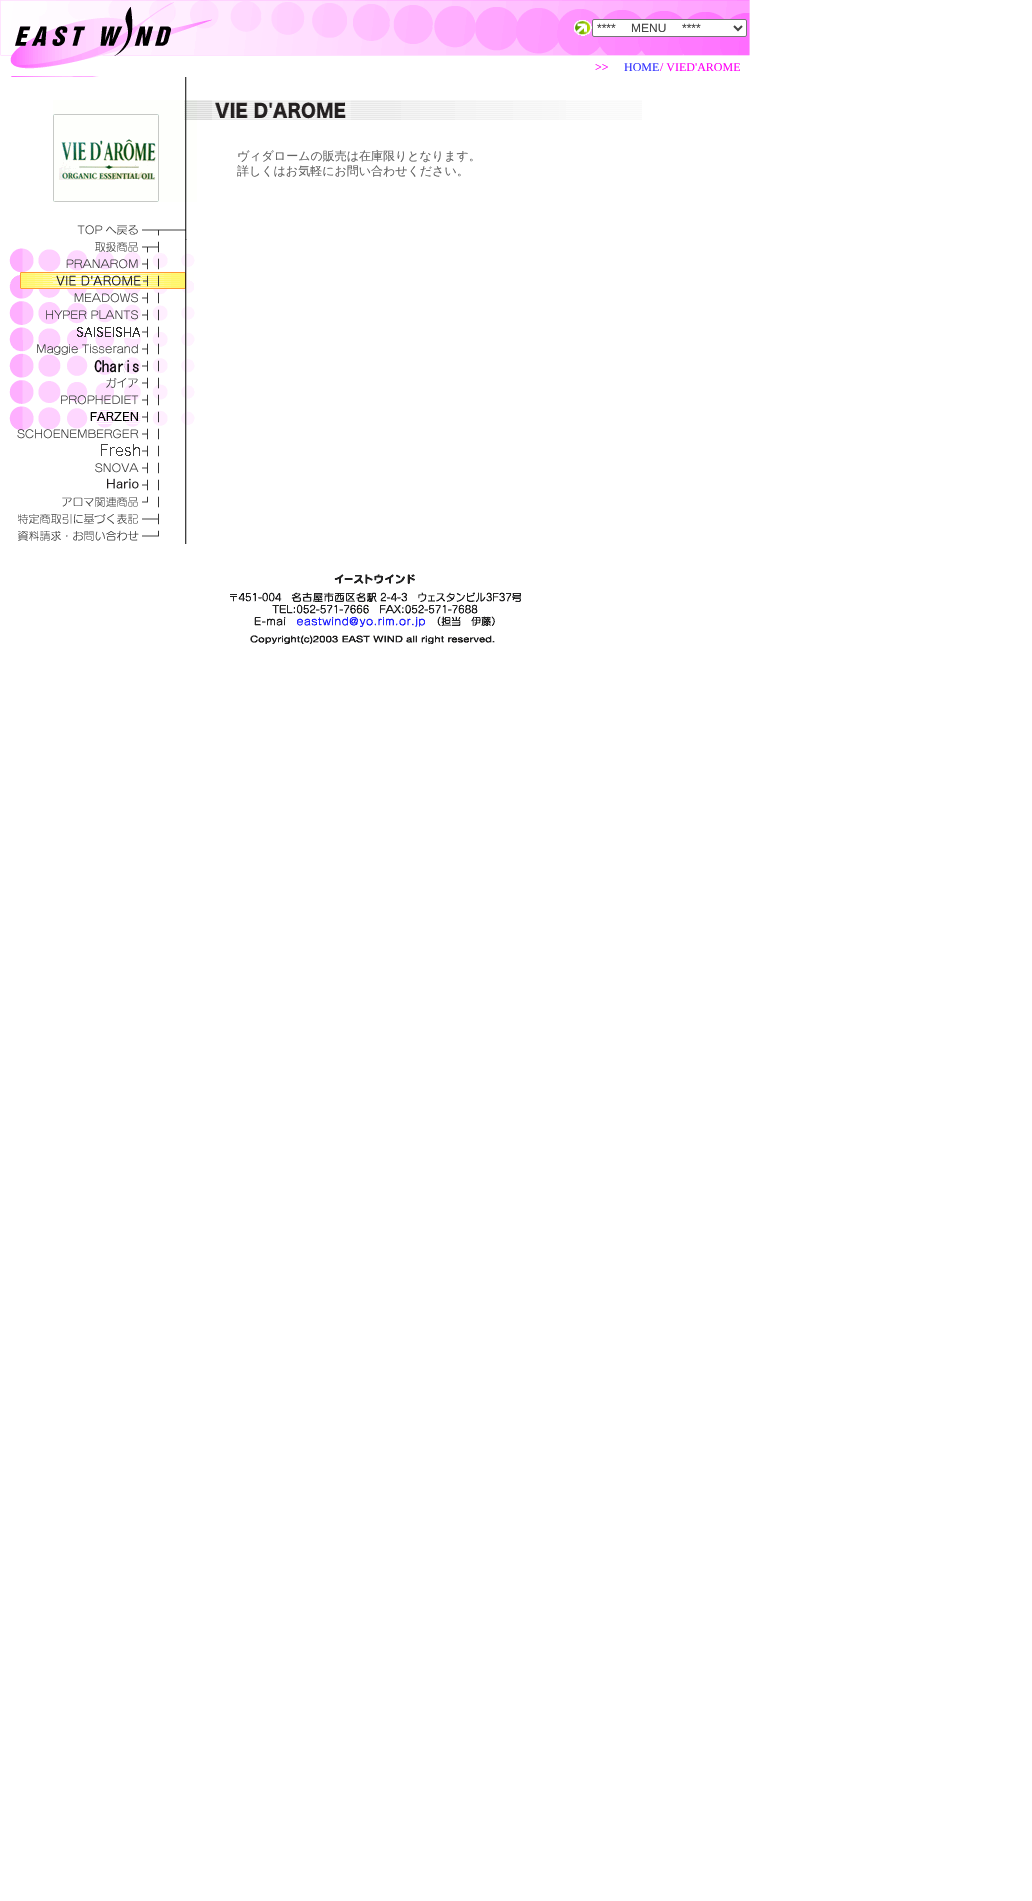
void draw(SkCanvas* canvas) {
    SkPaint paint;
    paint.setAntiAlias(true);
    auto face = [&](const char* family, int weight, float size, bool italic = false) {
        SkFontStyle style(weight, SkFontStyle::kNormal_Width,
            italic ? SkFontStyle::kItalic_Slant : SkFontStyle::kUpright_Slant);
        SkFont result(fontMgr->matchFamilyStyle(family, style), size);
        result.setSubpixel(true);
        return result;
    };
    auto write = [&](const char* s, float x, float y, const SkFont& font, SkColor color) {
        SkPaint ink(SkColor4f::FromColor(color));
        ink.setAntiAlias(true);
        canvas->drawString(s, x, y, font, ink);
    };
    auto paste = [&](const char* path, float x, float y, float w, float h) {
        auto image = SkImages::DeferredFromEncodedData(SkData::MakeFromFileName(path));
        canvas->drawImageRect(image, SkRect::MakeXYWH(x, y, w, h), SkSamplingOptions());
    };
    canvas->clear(SK_ColorWHITE);
    paste("pic1.png", 0, 0, 750, 56);
    paste("pic2.png", 574, 20, 18, 16);
    paint.setColor(SK_ColorWHITE);
    canvas->drawRoundRect(SkRect::MakeXYWH(592.5f, 19.5f, 154, 17), 1.5f, 1.5f, paint);
    paint.setStyle(SkPaint::kStroke_Style);
    paint.setStrokeWidth(1);
    paint.setColor(SkColorSetRGB(118, 118, 118));
    canvas->drawRoundRect(SkRect::MakeXYWH(592.5f, 19.5f, 154, 17), 1.5f, 1.5f, paint);
    paint.setStrokeWidth(2);
    paint.setColor(SkColorSetRGB(68, 68, 68));
    canvas->drawPath(SkPathBuilder().moveTo(734, 26).lineTo(738, 30).lineTo(742, 26).detach(), paint);
    auto kFont1 = face("Liberation Sans", 400, 12);
    write("****", 597, 32, kFont1, SkColorSetRGB(68, 68, 68));
    write("MENU", 631, 32, kFont1, SkColorSetRGB(68, 68, 68));
    write("****", 682, 32, kFont1, SkColorSetRGB(68, 68, 68));
    paste("pic3.png", 10, 56, 89, 21);
    auto kFont2 = face("Liberation Serif", 400, 12);
    write(">>", 595, 71, kFont2, SkColorSetRGB(255, 0, 246));
    write("HOME", 624, 71, kFont2, SkColorSetRGB(51, 51, 255));
    write("/ VIED'AROME", 660, 71, kFont2, SkColorSetRGB(255, 0, 246));
    paste("pic4.png", 185, 77, 2, 467);
    paste("pic5.png", 53, 100, 144, 102);
    paste("pic6.png", 77, 225, 109, 11);
    paste("pic7.png", 11, 239, 180, 16);
    paste("pic8.png", 9, 255, 186, 17);
    paste("pic9.png", 9, 272, 185, 17);
    paste("pic10.png", 10, 289, 184, 17);
    paste("pic11.png", 9, 306, 186, 17);
    paste("pic12.png", 9, 323, 186, 17);
    paste("pic13.png", 9, 340, 186, 17);
    paste("pic14.png", 9, 357, 186, 17);
    paste("pic15.png", 10, 374, 184, 17);
    paste("pic16.png", 9, 391, 186, 17);
    paste("pic17.png", 9, 408, 186, 17);
    paste("pic18.png", 12, 425, 151, 15);
    paste("pic19.png", 101, 444, 58, 13);
    paste("pic20.png", 95, 462, 64, 12);
    paste("pic21.png", 107, 478, 52, 13);
    paste("pic22.png", 62, 496, 97, 12);
    paste("pic23.png", 18, 513, 141, 12);
    paste("pic24.png", 18, 530, 141, 11);
    paste("pic25.png", 197, 100, 445, 20);
    auto kFont3 = face("WenQuanYi Zen Hei", 500, 12);
    write("ヴィダロームの販売は在庫限りとなります。", 237, 160, kFont3, SkColorSetRGB(99, 99, 99));
    write("詳しくはお気軽にお問い合わせください。", 237, 175, kFont3, SkColorSetRGB(99, 99, 99));
    paste("pic26.png", 230, 574, 291, 70);
}
